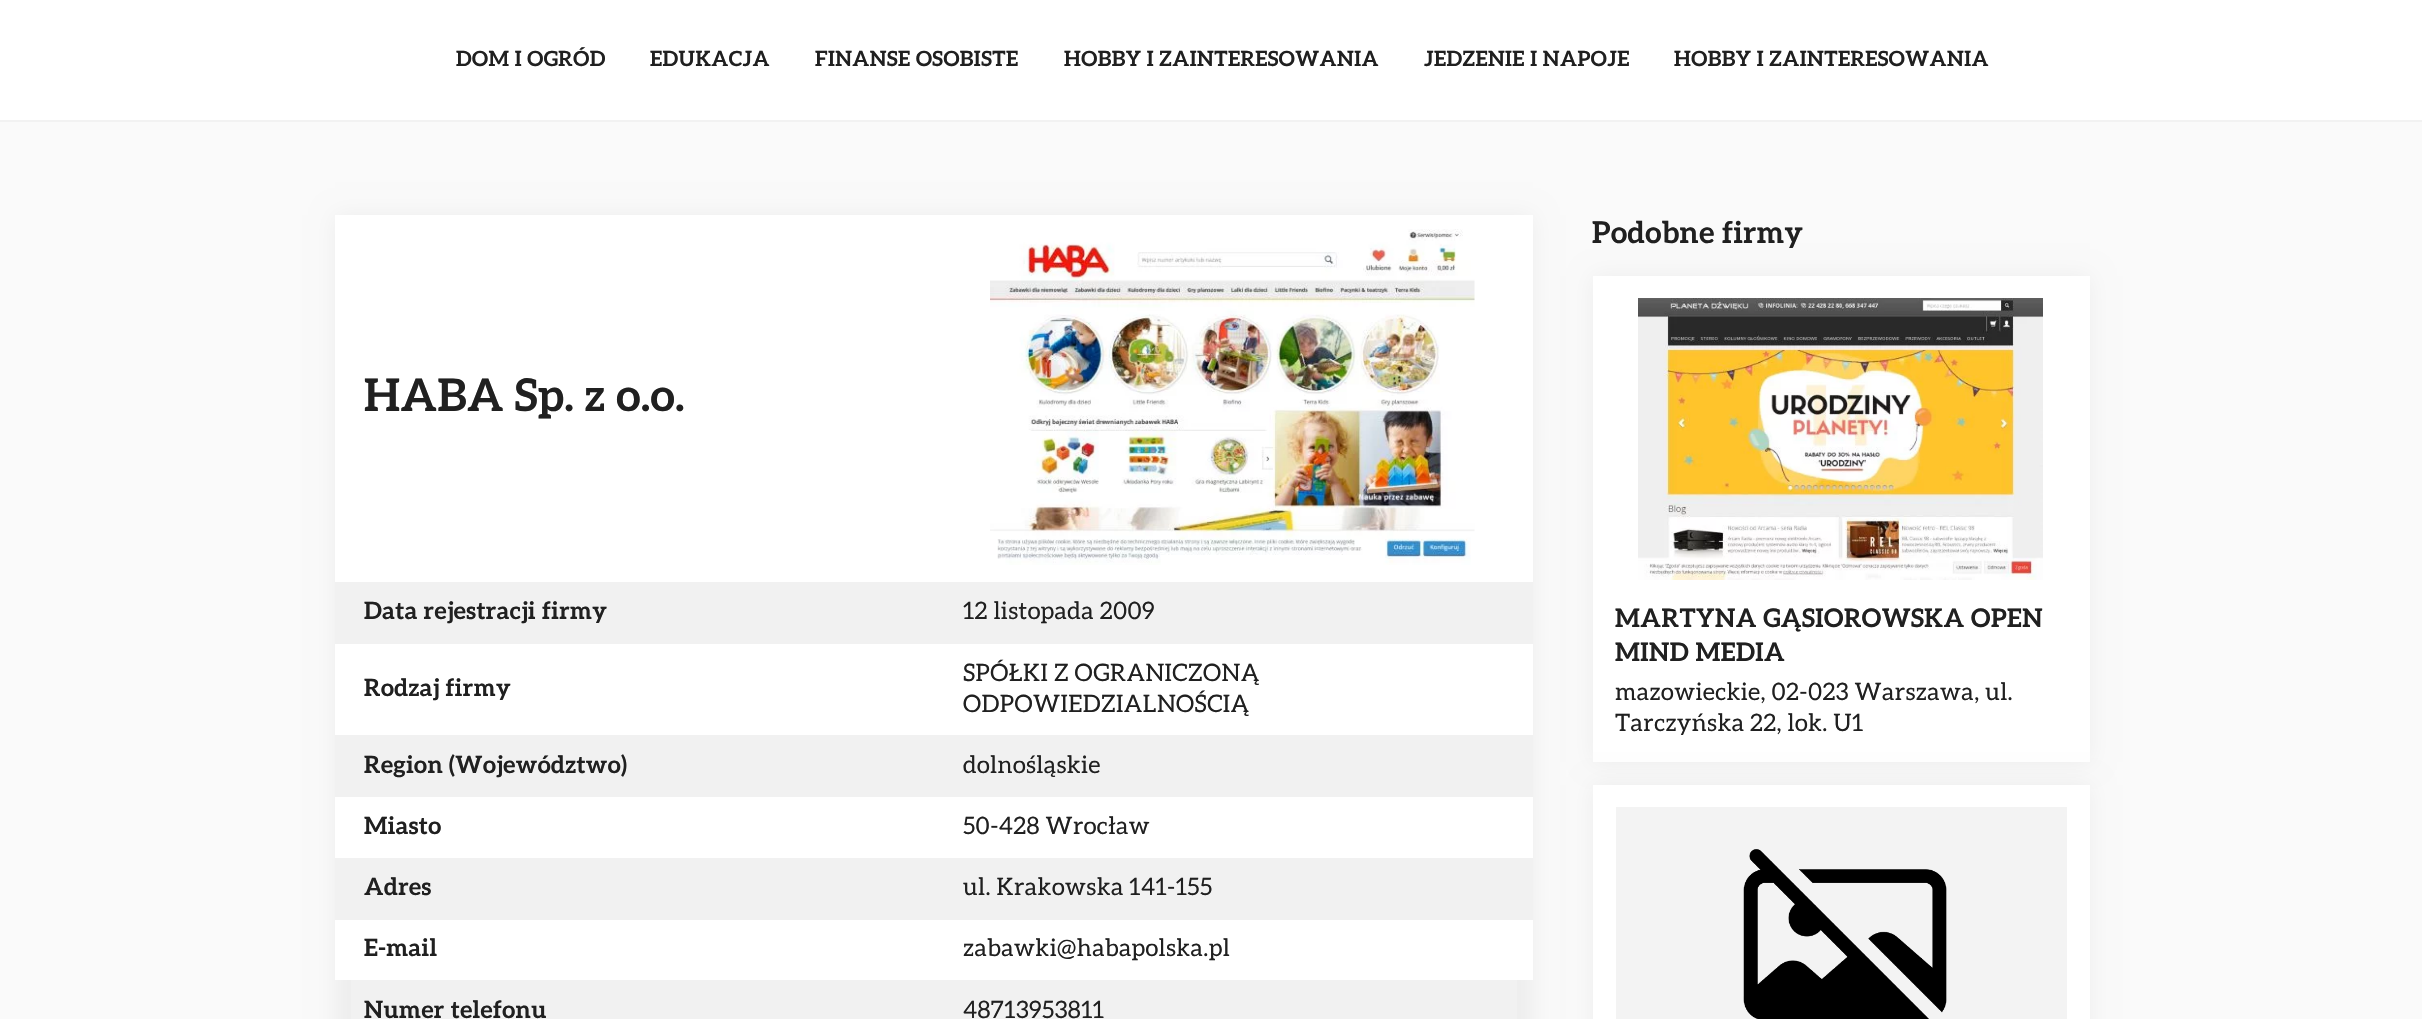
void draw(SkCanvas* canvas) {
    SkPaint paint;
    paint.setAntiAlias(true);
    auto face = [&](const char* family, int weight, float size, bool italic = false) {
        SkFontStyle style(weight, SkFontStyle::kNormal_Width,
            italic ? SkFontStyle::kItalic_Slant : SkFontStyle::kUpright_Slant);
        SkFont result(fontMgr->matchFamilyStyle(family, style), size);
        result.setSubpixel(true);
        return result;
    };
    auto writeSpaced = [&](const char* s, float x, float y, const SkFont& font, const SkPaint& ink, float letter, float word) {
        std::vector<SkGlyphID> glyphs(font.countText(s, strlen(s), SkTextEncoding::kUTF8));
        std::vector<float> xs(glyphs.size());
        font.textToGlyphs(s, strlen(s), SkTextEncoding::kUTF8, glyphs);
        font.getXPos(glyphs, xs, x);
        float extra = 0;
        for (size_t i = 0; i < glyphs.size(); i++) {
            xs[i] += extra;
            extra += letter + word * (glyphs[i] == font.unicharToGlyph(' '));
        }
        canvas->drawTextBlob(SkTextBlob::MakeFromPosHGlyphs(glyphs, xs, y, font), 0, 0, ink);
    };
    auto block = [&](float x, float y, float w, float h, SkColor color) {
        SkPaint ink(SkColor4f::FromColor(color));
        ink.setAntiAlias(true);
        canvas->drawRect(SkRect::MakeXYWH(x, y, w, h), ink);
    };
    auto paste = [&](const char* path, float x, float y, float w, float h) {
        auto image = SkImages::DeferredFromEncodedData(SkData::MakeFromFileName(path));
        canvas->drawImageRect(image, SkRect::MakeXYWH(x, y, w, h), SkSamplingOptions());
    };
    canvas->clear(SkColorSetRGB(250, 250, 250));
    block(0, 0, 2422, 120, SK_ColorWHITE);
    block(0, 120, 2422, 2, SkColorSetRGB(242, 242, 242));
    auto kFont1 = face("Aleo", 700, 21);
    paint.setColor(SkColorSetRGB(32, 32, 32));
    writeSpaced("DOM I OGRÓD", 456, 66, kFont1, paint, 0.45f, 0);
    writeSpaced("EDUKACJA", 650, 66, kFont1, paint, 0.45f, 0);
    writeSpaced("FINANSE OSOBISTE", 815, 66, kFont1, paint, 0.45f, 0);
    writeSpaced("HOBBY I ZAINTERESOWANIA", 1064, 66, kFont1, paint, 0.45f, 0);
    writeSpaced("JEDZENIE I NAPOJE", 1424, 66, kFont1, paint, 0.45f, 0);
    writeSpaced("HOBBY I ZAINTERESOWANIA", 1674, 66, kFont1, paint, 0.45f, 0);
    paint.setColor(SkColorSetARGB(13, 0, 0, 0));
    paint.setMaskFilter(SkMaskFilter::MakeBlur(kNormal_SkBlurStyle, 11));
    canvas->drawRect(SkRect::MakeXYWH(335, 215, 1198, 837), paint);
    paint.setMaskFilter(nullptr);
    block(335, 215, 1198, 765, SK_ColorWHITE);
    auto kFont2 = face("Aleo", 700, 45);
    paint.setColor(SkColorSetRGB(32, 32, 32));
    writeSpaced("HABA Sp. z o.o.", 364, 411, kFont2, paint, 0.45f, 0);
    paste("pic1.png", 990, 229, 485, 336);
    block(335, 582, 1198, 62, SkColorSetRGB(241, 241, 241));
    auto kFont3 = face("Aleo", 700, 24);
    writeSpaced("Data rejestracji firmy", 364, 619, kFont3, paint, 0.45f, 0);
    auto kFont4 = face("Aleo", 400, 24);
    writeSpaced("12 listopada 2009", 963, 619, kFont4, paint, 0.45f, 0);
    writeSpaced("Rodzaj firmy", 364, 696, kFont3, paint, 0.45f, 0);
    writeSpaced("SPÓŁKI Z OGRANICZONĄ", 963, 681, kFont4, paint, 0.45f, 0);
    writeSpaced("ODPOWIEDZIALNOŚCIĄ", 963, 712, kFont4, paint, 0.45f, 0);
    block(335, 735, 1198, 62, SkColorSetRGB(241, 241, 241));
    writeSpaced("Region (Województwo)", 364, 773, kFont3, paint, 0.45f, 0);
    writeSpaced("dolnośląskie", 963, 773, kFont4, paint, 0.45f, 0);
    writeSpaced("Miasto", 364, 834, kFont3, paint, 0.45f, 0);
    writeSpaced("50-428 Wrocław", 963, 834, kFont4, paint, 0.45f, 0);
    block(335, 858, 1198, 62, SkColorSetRGB(241, 241, 241));
    writeSpaced("Adres", 364, 895, kFont3, paint, 0.45f, 0);
    writeSpaced("ul. Krakowska 141-155", 963, 895, kFont4, paint, 0.45f, 0);
    writeSpaced("E-mail", 364, 956, kFont3, paint, 0.45f, 0);
    writeSpaced("zabawki@habapolska.pl", 963, 956, kFont4, paint, 0.45f, 0);
    block(351, 980, 1166, 39, SkColorSetRGB(241, 241, 241));
    writeSpaced("Numer telefonu", 364, 1018, kFont3, paint, 0.45f, 0);
    writeSpaced("48713953811", 963, 1018, kFont4, paint, 0.45f, 0);
    auto kFont5 = face("Aleo", 700, 30);
    writeSpaced("Podobne firmy", 1592, 243, kFont5, paint, 0.45f, 0);
    paint.setColor(SkColorSetARGB(13, 0, 0, 0));
    paint.setMaskFilter(SkMaskFilter::MakeBlur(kNormal_SkBlurStyle, 11));
    canvas->drawRect(SkRect::MakeXYWH(1593, 276, 497, 486), paint);
    paint.setMaskFilter(nullptr);
    block(1593, 276, 497, 486, SK_ColorWHITE);
    paste("pic2.png", 1638, 298, 405, 282);
    auto kFont6 = face("Aleo", 700, 25.5f);
    paint.setColor(SkColorSetRGB(32, 32, 32));
    writeSpaced("MARTYNA GĄSIOROWSKA OPEN", 1615, 627, kFont6, paint, 0.45f, 0);
    writeSpaced("MIND MEDIA", 1615, 661, kFont6, paint, 0.45f, 0);
    writeSpaced("mazowieckie, 02-023 Warszawa, ul.", 1615, 700, kFont4, paint, 0.45f, 0);
    writeSpaced("Tarczyńska 22, lok. U1", 1615, 731, kFont4, paint, 0.45f, 0);
    paint.setColor(SkColorSetARGB(13, 0, 0, 0));
    paint.setMaskFilter(SkMaskFilter::MakeBlur(kNormal_SkBlurStyle, 11));
    canvas->drawRect(SkRect::MakeXYWH(1593, 785, 497, 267), paint);
    paint.setMaskFilter(nullptr);
    block(1593, 785, 497, 234, SK_ColorWHITE);
    block(1616, 807, 451, 212, SkColorSetRGB(243, 243, 243));
    paste("pic3.png", 1743, 849, 204, 170);
}
